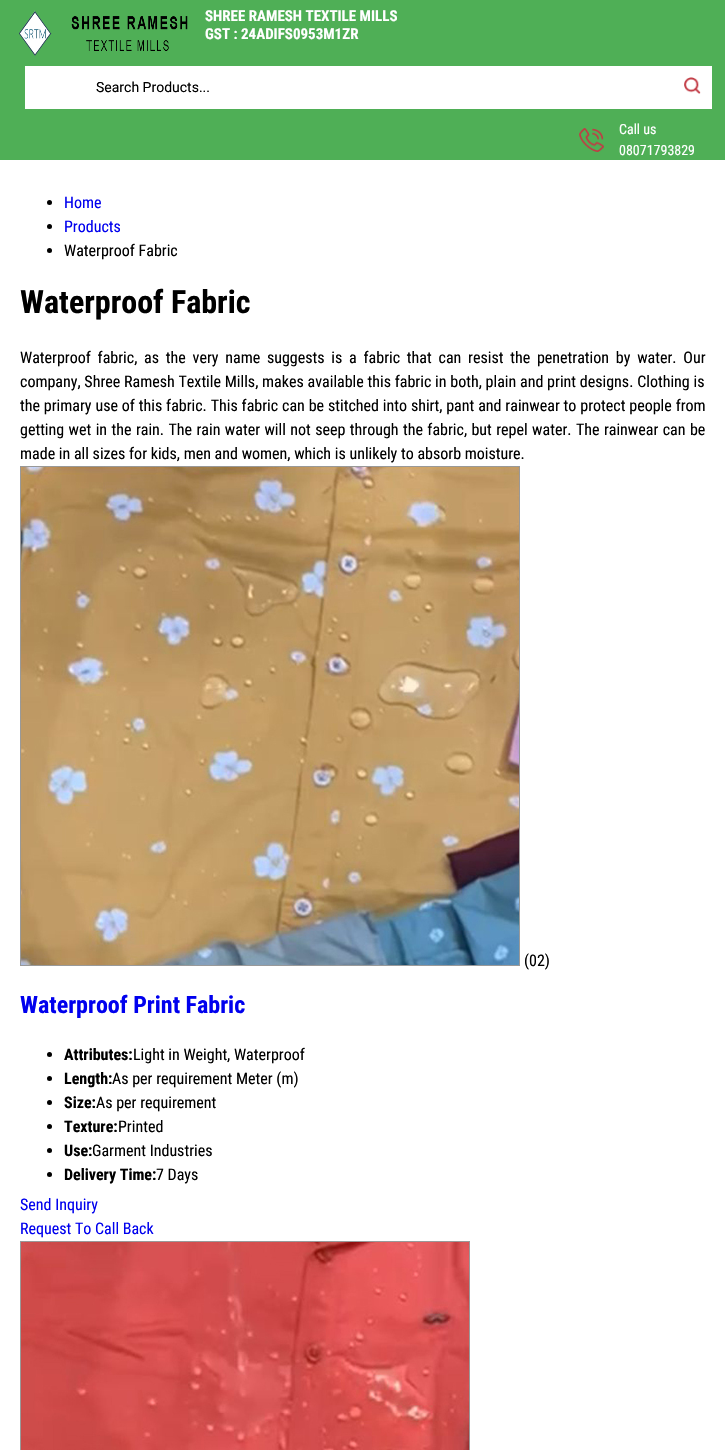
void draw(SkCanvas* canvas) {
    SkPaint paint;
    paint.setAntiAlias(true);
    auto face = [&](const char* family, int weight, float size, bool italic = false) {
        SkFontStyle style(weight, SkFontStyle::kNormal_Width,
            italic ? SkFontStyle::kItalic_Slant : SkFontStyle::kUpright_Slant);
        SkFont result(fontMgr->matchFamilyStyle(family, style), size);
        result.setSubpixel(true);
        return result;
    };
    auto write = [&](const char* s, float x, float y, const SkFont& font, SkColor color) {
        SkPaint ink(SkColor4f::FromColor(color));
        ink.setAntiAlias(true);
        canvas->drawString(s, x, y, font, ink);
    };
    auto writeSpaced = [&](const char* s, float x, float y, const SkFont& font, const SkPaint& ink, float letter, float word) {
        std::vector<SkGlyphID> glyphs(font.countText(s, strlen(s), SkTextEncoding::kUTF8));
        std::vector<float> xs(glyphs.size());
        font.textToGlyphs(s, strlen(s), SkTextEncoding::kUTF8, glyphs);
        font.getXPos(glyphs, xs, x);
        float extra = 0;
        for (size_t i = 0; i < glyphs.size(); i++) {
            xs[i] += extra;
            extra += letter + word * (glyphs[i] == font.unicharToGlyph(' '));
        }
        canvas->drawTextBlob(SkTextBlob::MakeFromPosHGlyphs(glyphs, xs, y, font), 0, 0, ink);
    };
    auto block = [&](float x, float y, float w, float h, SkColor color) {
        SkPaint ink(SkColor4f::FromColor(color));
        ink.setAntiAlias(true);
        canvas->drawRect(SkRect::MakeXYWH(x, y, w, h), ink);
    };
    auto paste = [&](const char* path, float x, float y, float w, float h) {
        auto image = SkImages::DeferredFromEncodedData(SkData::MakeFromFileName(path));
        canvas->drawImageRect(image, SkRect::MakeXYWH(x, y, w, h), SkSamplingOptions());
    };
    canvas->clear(SK_ColorWHITE);
    block(0, 0, 725, 160, SkColorSetRGB(79, 175, 86));
    paste("pic1.png", 19, 10, 169, 46);
    auto kFont1 = face("Roboto Condensed", 700, 15);
    write("SHREE RAMESH TEXTILE MILLS", 205, 21, kFont1, SK_ColorWHITE);
    write("GST : 24ADIFS0953M1ZR", 205, 39, kFont1, SK_ColorWHITE);
    block(25, 66, 687, 43, SK_ColorWHITE);
    auto kFont2 = face("Roboto", 400, 14);
    write("Search Products...", 96, 92, kFont2, SK_ColorBLACK);
    paste("pic2.png", 684, 77, 17, 17);
    paste("pic3.png", 579, 128, 25, 24);
    auto kFont3 = face("Roboto Condensed", 400, 14);
    write("Call us", 619, 134, kFont3, SK_ColorWHITE);
    write("08071793829", 619, 155, kFont3, SK_ColorWHITE);
    paint.setColor(SK_ColorBLACK);
    canvas->drawCircle(49.5f, 202.5f, 2.5f, paint);
    auto kFont4 = face("Roboto Condensed", 400, 16);
    write("Home", 64, 208, kFont4, SkColorSetRGB(0, 0, 238));
    canvas->drawCircle(49.5f, 226.5f, 2.5f, paint);
    write("Products", 64, 232, kFont4, SkColorSetRGB(0, 0, 238));
    canvas->drawCircle(49.5f, 250.5f, 2.5f, paint);
    write("Waterproof Fabric", 64, 256, kFont4, SK_ColorBLACK);
    auto kFont5 = face("Roboto Condensed", 700, 32);
    write("Waterproof Fabric", 20, 313, kFont5, SK_ColorBLACK);
    writeSpaced("Waterproof fabric, as the very name suggests is a fabric that can resist the penetration by water. Our", 20, 363, kFont4, paint, 0, 3.1f);
    writeSpaced("company, Shree Ramesh Textile Mills, makes available this fabric in both, plain and print designs. Clothing is", 20, 387, kFont4, paint, 0, 0.1f);
    writeSpaced("the primary use of this fabric. This fabric can be stitched into shirt, pant and rainwear to protect people from", 20, 411, kFont4, paint, 0, 0.2f);
    writeSpaced("getting wet in the rain. The rain water will not seep through the fabric, but repel water. The rainwear can be", 20, 435, kFont4, paint, 0, 0.75f);
    write("made in all sizes for kids, men and women, which is unlikely to absorb moisture.", 20, 459, kFont4, SK_ColorBLACK);
    paste("pic4.png", 20, 466, 500, 500);
    write("(02)", 524, 966, kFont4, SK_ColorBLACK);
    auto kFont6 = face("Roboto Condensed", 700, 24);
    write("Waterproof Print Fabric", 20, 1013, kFont6, SkColorSetRGB(0, 0, 238));
    canvas->drawCircle(49.5f, 1054.5f, 2.5f, paint);
    auto kFont7 = face("Roboto Condensed", 700, 16);
    write("Attributes:", 64, 1060, kFont7, SK_ColorBLACK);
    write("Light in Weight, Waterproof", 133, 1060, kFont4, SK_ColorBLACK);
    canvas->drawCircle(49.5f, 1078.5f, 2.5f, paint);
    write("Length:", 64, 1084, kFont7, SK_ColorBLACK);
    write("As per requirement Meter (m)", 112, 1084, kFont4, SK_ColorBLACK);
    canvas->drawCircle(49.5f, 1102.5f, 2.5f, paint);
    write("Size:", 64, 1108, kFont7, SK_ColorBLACK);
    write("As per requirement", 96, 1108, kFont4, SK_ColorBLACK);
    canvas->drawCircle(49.5f, 1126.5f, 2.5f, paint);
    write("Texture:", 64, 1132, kFont7, SK_ColorBLACK);
    write("Printed", 118, 1132, kFont4, SK_ColorBLACK);
    canvas->drawCircle(49.5f, 1150.5f, 2.5f, paint);
    write("Use:", 64, 1156, kFont7, SK_ColorBLACK);
    write("Garment Industries", 92, 1156, kFont4, SK_ColorBLACK);
    canvas->drawCircle(49.5f, 1174.5f, 2.5f, paint);
    write("Delivery Time:", 64, 1180, kFont7, SK_ColorBLACK);
    write("7 Days", 156, 1180, kFont4, SK_ColorBLACK);
    write("Send Inquiry", 20, 1210, kFont4, SkColorSetRGB(0, 0, 238));
    write("Request To Call Back", 20, 1234, kFont4, SkColorSetRGB(0, 0, 238));
    paste("pic5.png", 20, 1241, 450, 209);
}
